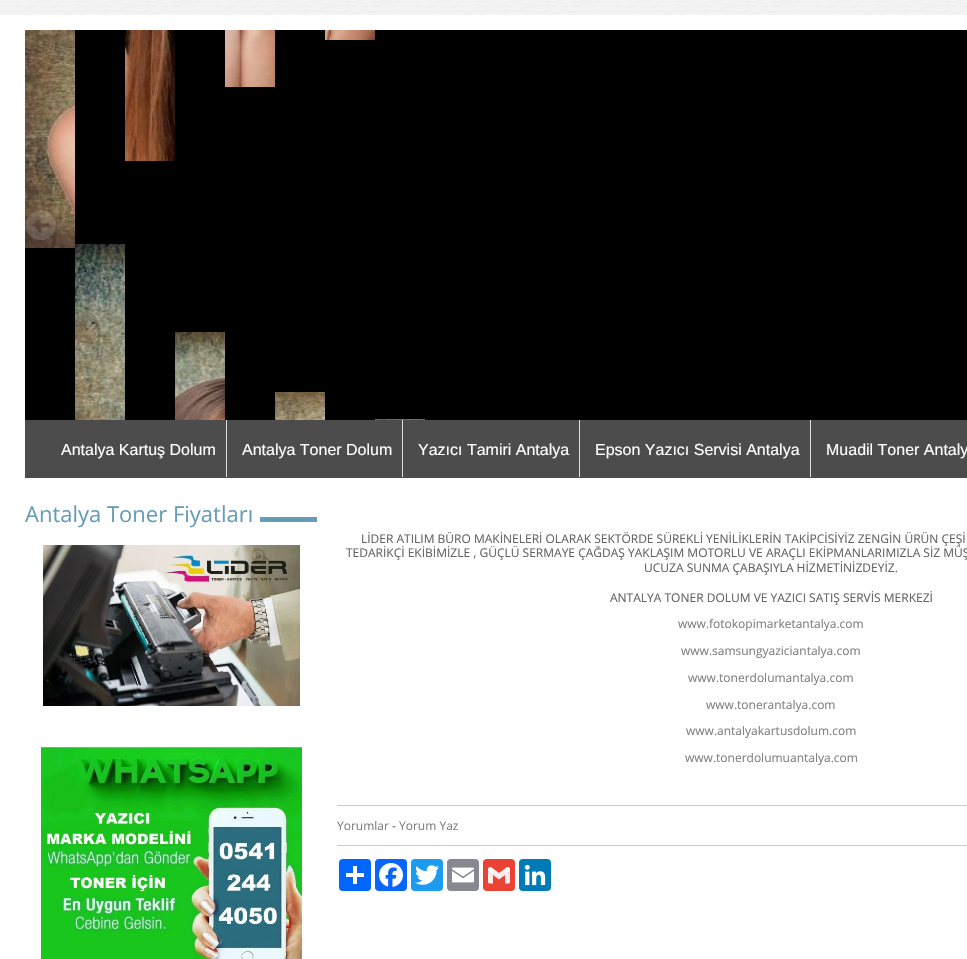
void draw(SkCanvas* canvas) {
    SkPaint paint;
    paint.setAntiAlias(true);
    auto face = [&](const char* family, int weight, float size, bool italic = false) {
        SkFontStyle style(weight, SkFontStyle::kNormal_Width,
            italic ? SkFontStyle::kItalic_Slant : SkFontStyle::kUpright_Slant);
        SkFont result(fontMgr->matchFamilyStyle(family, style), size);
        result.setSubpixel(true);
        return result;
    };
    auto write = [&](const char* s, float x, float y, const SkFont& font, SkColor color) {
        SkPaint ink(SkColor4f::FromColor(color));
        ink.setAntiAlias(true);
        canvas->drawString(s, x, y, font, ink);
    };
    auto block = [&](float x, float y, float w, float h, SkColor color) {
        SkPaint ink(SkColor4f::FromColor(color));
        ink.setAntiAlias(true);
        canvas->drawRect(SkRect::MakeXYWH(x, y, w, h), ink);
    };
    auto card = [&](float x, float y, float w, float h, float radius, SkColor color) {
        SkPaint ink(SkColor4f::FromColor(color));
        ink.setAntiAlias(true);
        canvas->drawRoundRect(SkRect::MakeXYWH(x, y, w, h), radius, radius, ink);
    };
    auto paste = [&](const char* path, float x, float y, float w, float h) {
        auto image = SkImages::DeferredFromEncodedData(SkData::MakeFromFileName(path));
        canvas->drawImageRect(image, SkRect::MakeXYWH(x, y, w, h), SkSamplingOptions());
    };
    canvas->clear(SK_ColorWHITE);
    paste("pic1.png", 0, 0, 967, 15);
    block(25, 30, 942, 390, SK_ColorBLACK);
    paste("pic2.png", 25, 30, 50, 218);
    paste("pic3.png", 125, 30, 50, 131);
    paste("pic4.png", 225, 30, 50, 57);
    paste("pic5.png", 325, 30, 50, 10);
    paste("pic6.png", 75, 244, 50, 176);
    paste("pic7.png", 175, 332, 50, 88);
    paste("pic8.png", 275, 392, 50, 28);
    paste("pic9.png", 375, 419, 50, 1);
    paste("pic10.png", 26, 210, 30, 30);
    block(25, 420, 942, 58, SkColorSetRGB(76, 76, 76));
    block(226, 420, 1, 57, SkColorSetRGB(221, 221, 221));
    auto kFont1 = face("Liberation Sans", 400, 16);
    write("Antalya Kartuş Dolum", 61, 455, kFont1, SK_ColorWHITE);
    block(402, 420, 1, 57, SkColorSetRGB(221, 221, 221));
    write("Antalya Toner Dolum", 242, 455, kFont1, SK_ColorWHITE);
    block(579, 420, 1, 57, SkColorSetRGB(221, 221, 221));
    write("Yazıcı Tamiri Antalya", 418, 455, kFont1, SK_ColorWHITE);
    block(810, 420, 1, 57, SkColorSetRGB(221, 221, 221));
    write("Epson Yazıcı Servisi Antalya", 595, 455, kFont1, SK_ColorWHITE);
    write("Muadil Toner Antaly", 826, 455, kFont1, SK_ColorWHITE);
    auto kFont2 = face("Open Sans", 400, 22);
    write("Antalya Toner Fiyatları", 25, 522, kFont2, SkColorSetRGB(103, 156, 183));
    block(260, 517, 57, 5, SkColorSetRGB(103, 156, 183));
    paste("pic11.png", 43, 545, 257, 161);
    paste("pic12.png", 41, 747, 261, 212);
    auto kFont3 = face("Open Sans", 400, 12);
    write("LİDER ATILIM BÜRO MAKİNELERİ OLARAK SEKTÖRDE SÜREKLİ YENİLİKLERİN TAKİPCİSİYİZ ZENGİN ÜRÜN ÇEŞİ", 361, 543, kFont3, SkColorSetRGB(99, 99, 99));
    write("TEDARİKÇİ EKİBİMİZLE , GÜÇLÜ SERMAYE ÇAĞDAŞ YAKLAŞIM MOTORLU VE ARAÇLI EKİPMANLARIMIZLA SİZ MÜŞ", 346, 557, kFont3, SkColorSetRGB(99, 99, 99));
    write("UCUZA SUNMA ÇABAŞIYLA HİZMETİNİZDEYİZ.", 644, 572, kFont3, SkColorSetRGB(99, 99, 99));
    write("ANTALYA TONER DOLUM VE YAZICI SATIŞ SERVİS MERKEZİ", 610, 602, kFont3, SkColorSetRGB(99, 99, 99));
    write("www.fotokopimarketantalya.com", 678, 628, kFont3, SkColorSetRGB(127, 127, 127));
    write("www.samsungyaziciantalya.com", 681, 655, kFont3, SkColorSetRGB(127, 127, 127));
    write("www.tonerdolumantalya.com", 688, 682, kFont3, SkColorSetRGB(127, 127, 127));
    write("www.tonerantalya.com", 706, 709, kFont3, SkColorSetRGB(127, 127, 127));
    write("www.antalyakartusdolum.com", 686, 735, kFont3, SkColorSetRGB(127, 127, 127));
    write("www.tonerdolumuantalya.com", 685, 762, kFont3, SkColorSetRGB(127, 127, 127));
    block(337, 805, 630, 1, SkColorSetRGB(204, 204, 204));
    write("Yorumlar", 337, 830, kFont3, SkColorSetRGB(127, 127, 127));
    write("-", 392, 830, kFont3, SkColorSetRGB(99, 99, 99));
    write("Yorum Yaz", 399, 830, kFont3, SkColorSetRGB(127, 127, 127));
    block(337, 845, 630, 1, SkColorSetRGB(204, 204, 204));
    card(339, 859, 32, 32, 4, SkColorSetRGB(1, 102, 255));
    block(353, 866, 4, 18, SK_ColorWHITE);
    block(346, 873, 18, 4, SK_ColorWHITE);
    card(375, 859, 32, 32, 4, SkColorSetRGB(8, 102, 255));
    paste("pic13.png", 379, 863, 24, 24);
    card(411, 859, 32, 32, 4, SkColorSetRGB(29, 155, 240));
    paste("pic14.png", 415, 865, 24, 20);
    card(447, 859, 32, 32, 4, SkColorSetRGB(136, 137, 144));
    paste("pic15.png", 452, 867, 22, 16);
    card(483, 859, 32, 32, 4, SkColorSetRGB(234, 67, 53));
    paste("pic16.png", 488, 867, 22, 17);
    card(519, 859, 32, 32, 4, SkColorSetRGB(0, 123, 181));
    paste("pic17.png", 524, 864, 22, 22);
}
